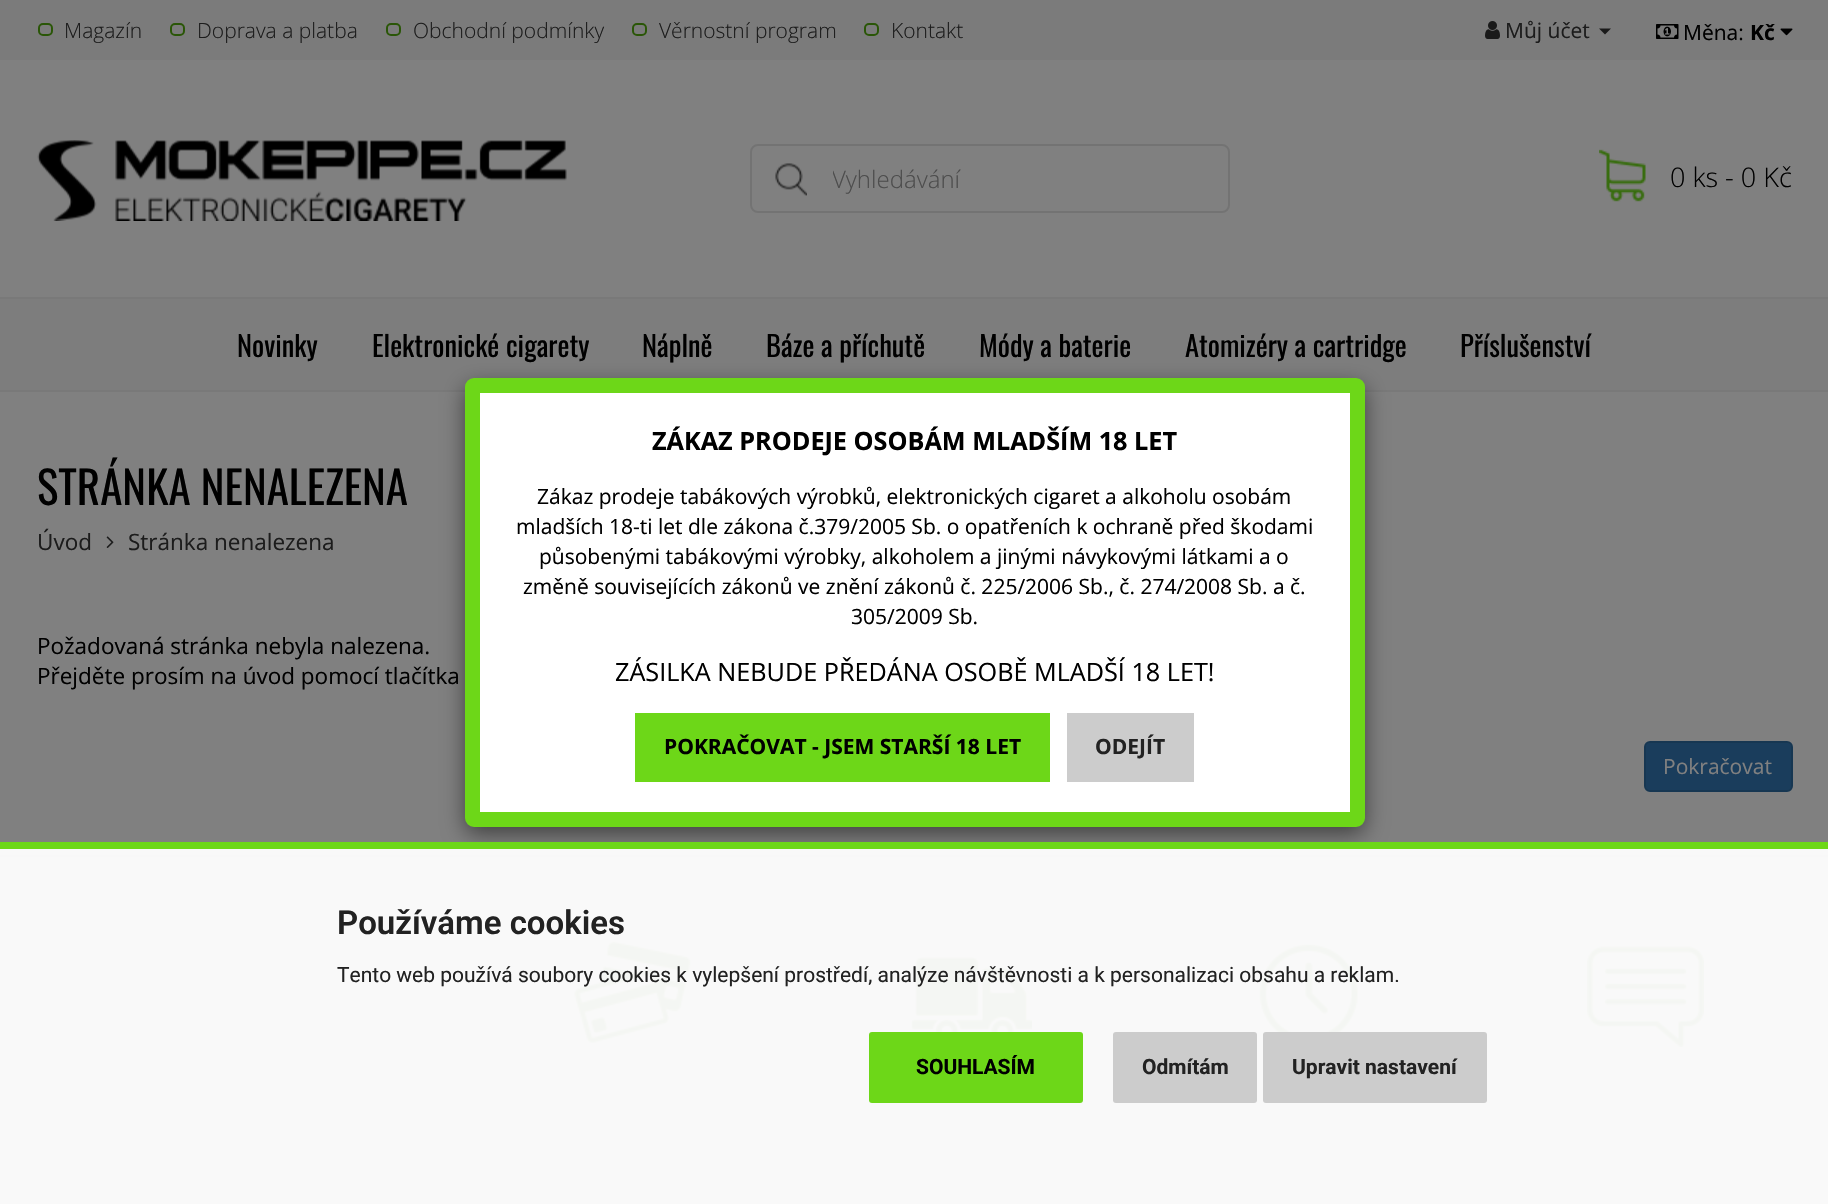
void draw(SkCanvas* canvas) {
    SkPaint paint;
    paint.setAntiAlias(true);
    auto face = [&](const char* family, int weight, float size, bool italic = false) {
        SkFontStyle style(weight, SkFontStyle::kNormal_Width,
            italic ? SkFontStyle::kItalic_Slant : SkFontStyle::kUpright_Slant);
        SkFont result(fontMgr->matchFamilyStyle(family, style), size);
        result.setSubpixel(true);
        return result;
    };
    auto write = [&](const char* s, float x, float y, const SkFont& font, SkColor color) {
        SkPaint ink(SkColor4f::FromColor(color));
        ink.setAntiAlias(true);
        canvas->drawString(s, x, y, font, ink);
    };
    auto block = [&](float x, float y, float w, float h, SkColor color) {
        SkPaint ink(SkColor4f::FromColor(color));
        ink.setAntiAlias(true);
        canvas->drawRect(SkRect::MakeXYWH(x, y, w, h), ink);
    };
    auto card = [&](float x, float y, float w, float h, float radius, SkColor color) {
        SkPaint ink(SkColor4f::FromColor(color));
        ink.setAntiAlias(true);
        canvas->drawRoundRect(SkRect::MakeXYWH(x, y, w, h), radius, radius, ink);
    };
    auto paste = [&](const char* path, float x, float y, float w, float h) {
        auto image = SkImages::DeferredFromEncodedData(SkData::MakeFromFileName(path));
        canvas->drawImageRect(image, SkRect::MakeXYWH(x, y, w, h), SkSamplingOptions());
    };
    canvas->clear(SkColorSetRGB(128, 128, 128));
    block(0, 0, 1828, 60, SkColorSetRGB(123, 123, 123));
    paint.setStyle(SkPaint::kStroke_Style);
    paint.setStrokeWidth(2);
    paint.setColor(SkColorSetRGB(42, 86, 7));
    canvas->drawRoundRect(SkRect::MakeXYWH(39, 24, 13, 11), 4, 4, paint);
    auto kFont1 = face("Open Sans", 300, 21);
    write("Magazín", 64, 38, kFont1, SkColorSetRGB(28, 28, 28));
    canvas->drawRoundRect(SkRect::MakeXYWH(171, 24, 13, 11), 4, 4, paint);
    write("Doprava a platba", 197, 38, kFont1, SkColorSetRGB(28, 28, 28));
    canvas->drawRoundRect(SkRect::MakeXYWH(387, 24, 13, 11), 4, 4, paint);
    write("Obchodní podmínky", 413, 38, kFont1, SkColorSetRGB(28, 28, 28));
    canvas->drawRoundRect(SkRect::MakeXYWH(633, 24, 13, 11), 4, 4, paint);
    write("Věrnostní program", 659, 38, kFont1, SkColorSetRGB(28, 28, 28));
    canvas->drawRoundRect(SkRect::MakeXYWH(865, 24, 13, 11), 4, 4, paint);
    write("Kontakt", 891, 38, kFont1, SkColorSetRGB(28, 28, 28));
    paste("pic1.png", 1485, 21, 15, 18);
    auto kFont2 = face("Open Sans", 400, 21);
    write("Můj účet", 1505, 38, kFont2, SkColorSetRGB(28, 28, 28));
    paint.setStyle(SkPaint::kFill_Style);
    paint.setColor(SkColorSetRGB(26, 26, 26));
    canvas->drawPath(SkPathBuilder().moveTo(1599, 28.5f).lineTo(1611, 28.5f).lineTo(1605, 34.5f).close().detach(), paint);
    paste("pic2.png", 1656, 24, 23, 15);
    write("Měna:", 1683, 40, kFont2, SK_ColorBLACK);
    auto kFont3 = face("Open Sans", 700, 21);
    write("Kč", 1750, 40, kFont3, SK_ColorBLACK);
    paste("pic3.png", 1780, 28, 13, 8);
    paste("pic4.png", 37, 140, 530, 81);
    paint.setStyle(SkPaint::kStroke_Style);
    paint.setColor(SkColorSetRGB(115, 115, 115));
    canvas->drawRoundRect(SkRect::MakeXYWH(751, 145, 478, 67), 7, 7, paint);
    paste("pic5.png", 775, 163, 32, 33);
    canvas->save();
    canvas->clipRect(SkRect::MakeXYWH(833, 162, 366, 33));
    auto kFont4 = face("Open Sans", 300, 24);
    write("Vyhledávání", 832, 188, kFont4, SkColorSetRGB(77, 77, 77));
    canvas->restore();
    paste("pic6.png", 1599, 149, 47, 53);
    auto kFont5 = face("Open Sans", 300, 27);
    write("0 ks - 0 Kč", 1670, 187, kFont5, SK_ColorBLACK);
    block(0, 299, 1828, 91, SkColorSetRGB(125, 125, 125));
    block(0, 297, 1828, 2, SkColorSetRGB(121, 121, 121));
    block(0, 390, 1828, 2, SkColorSetRGB(121, 121, 121));
    auto kFont6 = face("Oswald", 400, 28.5f);
    write("Novinky", 237, 357, kFont6, SK_ColorBLACK);
    write("Elektronické cigarety", 372, 357, kFont6, SK_ColorBLACK);
    write("Náplně", 642, 357, kFont6, SK_ColorBLACK);
    write("Báze a příchutě", 766, 357, kFont6, SK_ColorBLACK);
    write("Módy a baterie", 979, 357, kFont6, SK_ColorBLACK);
    write("Atomizéry a cartridge", 1185, 357, kFont6, SK_ColorBLACK);
    write("Příslušenství", 1460, 357, kFont6, SK_ColorBLACK);
    block(0, 855, 1828, 2, SkColorSetRGB(118, 118, 118));
    paint.setStyle(SkPaint::kFill_Style);
    paint.setColor(SkColorSetARGB(128, 0, 0, 0));
    paint.setMaskFilter(SkMaskFilter::MakeBlur(kNormal_SkBlurStyle, 11));
    canvas->drawRoundRect(SkRect::MakeXYWH(465, 386, 900, 448), 9, 9, paint);
    paint.setMaskFilter(nullptr);
    paint.setColor(SK_ColorWHITE);
    canvas->drawRoundRect(SkRect::MakeXYWH(472.5f, 385.5f, 885, 434), 1.5f, 1.5f, paint);
    paint.setStyle(SkPaint::kStroke_Style);
    paint.setStrokeWidth(15);
    paint.setColor(SkColorSetRGB(109, 215, 24));
    canvas->drawRoundRect(SkRect::MakeXYWH(472.5f, 385.5f, 885, 434), 1.5f, 1.5f, paint);
    auto kFont7 = face("Open Sans", 700, 25.2f);
    write("ZÁKAZ PRODEJE OSOBÁM MLADŠÍM 18 LET", 652, 450, kFont7, SK_ColorBLACK);
    write("Zákaz prodeje tabákových výrobků, elektronických cigaret a alkoholu osobám", 537, 504, kFont2, SK_ColorBLACK);
    write("mladších 18-ti let dle zákona č.379/2005 Sb. o opatřeních k ochraně před škodami", 516, 534, kFont2, SK_ColorBLACK);
    write("působenými tabákovými výrobky, alkoholem a jinými návykovými látkami a o", 539, 564, kFont2, SK_ColorBLACK);
    write("změně souvisejících zákonů ve znění zákonů č. 225/2006 Sb., č. 274/2008 Sb. a č.", 523, 594, kFont2, SK_ColorBLACK);
    write("305/2009 Sb.", 851, 624, kFont2, SK_ColorBLACK);
    auto kFont8 = face("Open Sans", 400, 25.2f);
    write("ZÁSILKA NEBUDE PŘEDÁNA OSOBĚ MLADŠÍ 18 LET!", 615, 681, kFont8, SK_ColorBLACK);
    block(635, 713, 415, 69, SkColorSetRGB(109, 215, 24));
    write("POKRAČOVAT - JSEM STARŠÍ 18 LET", 664, 754, kFont3, SK_ColorBLACK);
    block(1067, 713, 127, 69, SkColorSetRGB(204, 204, 204));
    write("ODEJÍT", 1095, 754, kFont3, SkColorSetRGB(34, 34, 34));
    auto kFont9 = face("Oswald", 400, 45);
    write("STRÁNKA NENALEZENA", 37, 505, kFont9, SK_ColorBLACK);
    auto kFont10 = face("Open Sans", 400, 22.5f);
    write("Úvod", 37, 550, kFont10, SkColorSetRGB(28, 28, 28));
    paste("pic7.png", 106, 536, 8, 12);
    write("Stránka nenalezena", 128, 550, kFont10, SkColorSetRGB(28, 28, 28));
    write("Požadovaná stránka nebyla nalezena.", 37, 654, kFont10, SK_ColorBLACK);
    write("Přejděte prosím na úvod pomocí tlačítka", 37, 684, kFont10, SK_ColorBLACK);
    paint.setStyle(SkPaint::kFill_Style);
    paint.setColor(SkColorSetRGB(26, 61, 92));
    canvas->drawRoundRect(SkRect::MakeXYWH(1645, 742, 147, 49), 5, 5, paint);
    paint.setStyle(SkPaint::kStroke_Style);
    paint.setStrokeWidth(2);
    paint.setColor(SkColorSetRGB(23, 55, 82));
    canvas->drawRoundRect(SkRect::MakeXYWH(1645, 742, 147, 49), 5, 5, paint);
    write("Pokračovat", 1663, 774, kFont2, SkColorSetRGB(128, 128, 128));
    paste("pic8.png", 574, 941, 117, 102);
    paste("pic9.png", 911, 956, 121, 76);
    paste("pic10.png", 1259, 944, 99, 88);
    paste("pic11.png", 1587, 946, 117, 101);
    block(0, 849, 1828, 355, SkColorSetARGB(242, 255, 255, 255));
    block(0, 842, 1828, 7, SkColorSetRGB(109, 215, 24));
    auto kFont11 = face("Roboto", 600, 33);
    write("Používáme cookies", 337, 934, kFont11, SkColorSetRGB(34, 34, 34));
    auto kFont12 = face("Roboto", 400, 21);
    write("Tento web používá soubory cookies k vylepšení prostředí, analýze návštěvnosti a k personalizaci obsahu a reklam.", 337, 982, kFont12, SkColorSetRGB(34, 34, 34));
    card(869, 1032, 214, 71, 3, SkColorSetRGB(109, 215, 24));
    auto kFont13 = face("Roboto", 700, 21);
    write("SOUHLASÍM", 916, 1074, kFont13, SK_ColorBLACK);
    card(1113, 1032, 144, 71, 3, SkColorSetRGB(204, 204, 204));
    write("Odmítám", 1142, 1074, kFont13, SkColorSetRGB(34, 34, 34));
    card(1263, 1032, 224, 71, 3, SkColorSetRGB(204, 204, 204));
    write("Upravit nastavení", 1292, 1074, kFont13, SkColorSetRGB(34, 34, 34));
}
